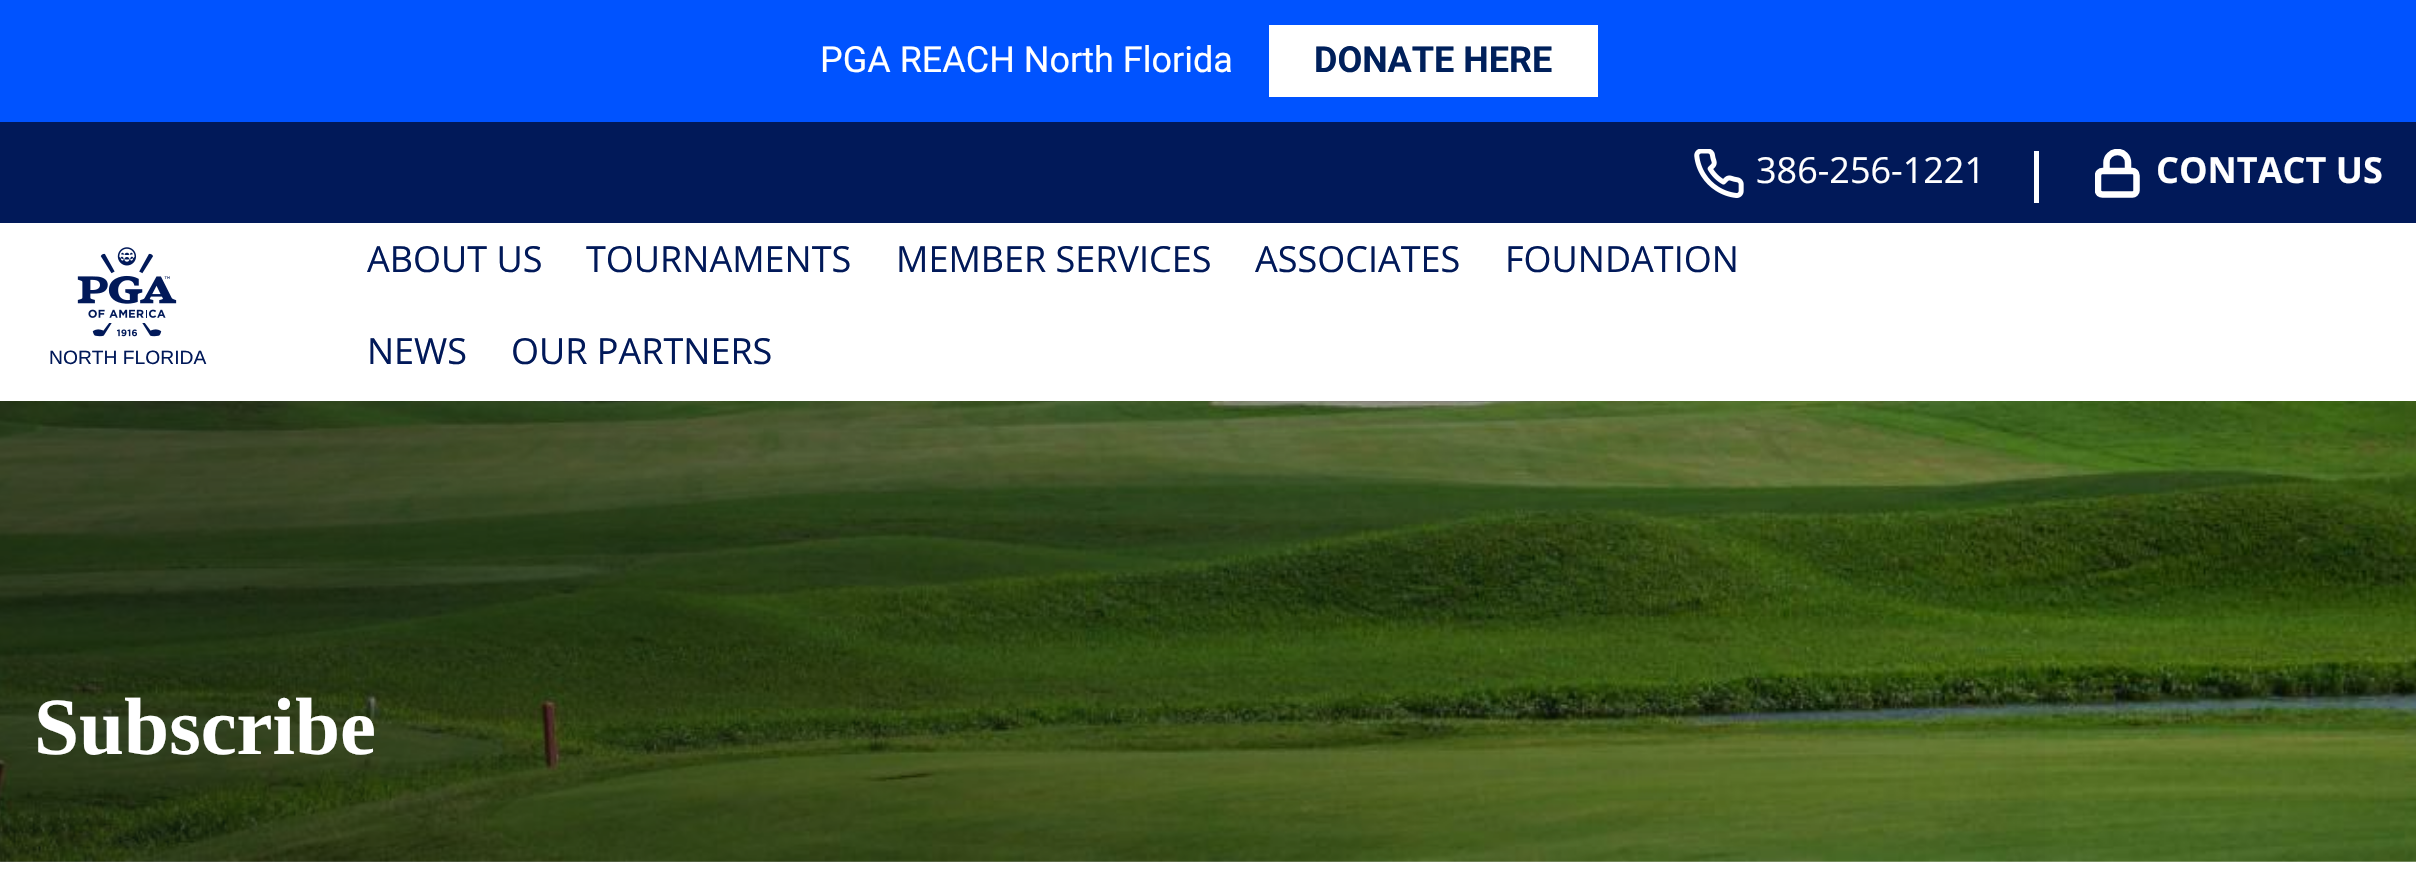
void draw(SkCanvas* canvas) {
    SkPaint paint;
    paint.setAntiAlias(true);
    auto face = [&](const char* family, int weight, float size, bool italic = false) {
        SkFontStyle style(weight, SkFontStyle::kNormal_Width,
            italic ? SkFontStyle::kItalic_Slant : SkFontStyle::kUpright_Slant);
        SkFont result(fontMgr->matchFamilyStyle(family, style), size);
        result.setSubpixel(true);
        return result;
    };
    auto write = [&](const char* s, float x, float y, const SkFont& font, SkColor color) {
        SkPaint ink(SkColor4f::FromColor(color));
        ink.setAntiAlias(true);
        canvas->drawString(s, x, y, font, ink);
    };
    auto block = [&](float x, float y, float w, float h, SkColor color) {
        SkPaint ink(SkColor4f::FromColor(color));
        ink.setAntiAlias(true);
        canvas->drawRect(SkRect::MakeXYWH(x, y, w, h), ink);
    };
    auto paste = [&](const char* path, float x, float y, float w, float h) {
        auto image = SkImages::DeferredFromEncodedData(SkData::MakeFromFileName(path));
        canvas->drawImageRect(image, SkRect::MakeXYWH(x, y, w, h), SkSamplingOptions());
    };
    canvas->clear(SK_ColorWHITE);
    block(0, 0, 2416, 122, SkColorSetRGB(0, 83, 255));
    auto kFont1 = face("Roboto", 400, 36);
    write("PGA REACH North Florida", 820, 72, kFont1, SK_ColorWHITE);
    block(1269, 25, 329, 72, SK_ColorWHITE);
    auto kFont2 = face("Roboto", 700, 36);
    write("DONATE HERE", 1314, 72, kFont2, SkColorSetRGB(0, 32, 91));
    block(0, 122, 2416, 101, SkColorSetRGB(1, 25, 89));
    paste("pic1.png", 1694, 149, 50, 49);
    auto kFont3 = face("Open Sans", 400, 36);
    write("386-256-1221", 1756, 183, kFont3, SK_ColorWHITE);
    block(2034, 151, 5, 52, SK_ColorWHITE);
    canvas->save();
    canvas->clipRect(SkRect::MakeXYWH(2095, 149, 45, 49));
    paint.setStyle(SkPaint::kStroke_Style);
    paint.setStrokeWidth(6.5f);
    paint.setStrokeCap(SkPaint::kRound_Cap);
    paint.setStrokeJoin(SkPaint::kRound_Join);
    paint.setColor(SK_ColorWHITE);
    canvas->drawPath(SkPathBuilder().moveTo(2102.5f, 171).lineTo(2132.5f, 171).cubicTo(2134.5f, 171, 2136.5f, 173, 2136.5f, 175.5f).lineTo(2136.5f, 190.5f).cubicTo(2136.5f, 193, 2134.5f, 194.5f, 2132.5f, 194.5f).lineTo(2102.5f, 194.5f).cubicTo(2100, 194.5f, 2098, 193, 2098, 190.5f).lineTo(2098, 175.5f).cubicTo(2098, 173, 2100, 171, 2102.5f, 171).close().moveTo(2106.5f, 171).lineTo(2106.5f, 162.5f).cubicTo(2106.5f, 156.5f, 2111.5f, 152, 2117.5f, 152).cubicTo(2123.5f, 152, 2128, 156.5f, 2128, 162.5f).lineTo(2128, 171).detach(), paint);
    canvas->restore();
    auto kFont4 = face("Open Sans", 700, 36);
    write("CONTACT US", 2156, 183, kFont4, SK_ColorWHITE);
    paste("pic2.png", 77, 247, 100, 90);
    auto kFont5 = face("Liberation Sans", 400, 19.25f);
    write("NORTH FLORIDA", 49, 364, kFont5, SkColorSetRGB(1, 25, 89));
    write("ABOUT US", 367, 272, kFont3, SkColorSetRGB(1, 25, 89));
    write("TOURNAMENTS", 586, 272, kFont3, SkColorSetRGB(1, 25, 89));
    write("MEMBER SERVICES", 896, 272, kFont3, SkColorSetRGB(1, 25, 89));
    write("ASSOCIATES", 1255, 272, kFont3, SkColorSetRGB(1, 25, 89));
    write("FOUNDATION", 1505, 272, kFont3, SkColorSetRGB(1, 25, 89));
    write("NEWS", 367, 364, kFont3, SkColorSetRGB(1, 25, 89));
    write("OUR PARTNERS", 511, 364, kFont3, SkColorSetRGB(1, 25, 89));
    paste("pic3.png", 0, 401, 2416, 461);
    paint.setStyle(SkPaint::kFill_Style);
    {
        const SkColor colors[] = {SkColorSetARGB(128, 16, 16, 17), SkColorSetARGB(0, 16, 16, 17), SkColorSetARGB(0, 16, 16, 17)};
        const float stops[] = {0.09f, 0.88f, 1};
        const SkPoint ends[] = {{0, 524}, {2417, 524}};
        paint.setShader(SkGradientShader::MakeLinear(ends, colors, stops, 3, SkTileMode::kClamp));
        paint.setAlpha(255);
    }
    canvas->drawRect(SkRect::MakeXYWH(0, 401, 2045, 461), paint);
    auto kFont6 = face("Liberation Serif", 700, 81);
    write("Subscribe", 34, 754, kFont6, SK_ColorWHITE);
}
